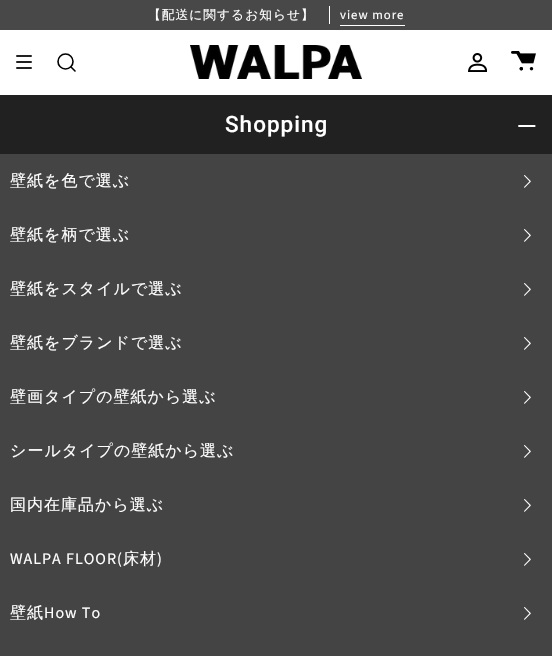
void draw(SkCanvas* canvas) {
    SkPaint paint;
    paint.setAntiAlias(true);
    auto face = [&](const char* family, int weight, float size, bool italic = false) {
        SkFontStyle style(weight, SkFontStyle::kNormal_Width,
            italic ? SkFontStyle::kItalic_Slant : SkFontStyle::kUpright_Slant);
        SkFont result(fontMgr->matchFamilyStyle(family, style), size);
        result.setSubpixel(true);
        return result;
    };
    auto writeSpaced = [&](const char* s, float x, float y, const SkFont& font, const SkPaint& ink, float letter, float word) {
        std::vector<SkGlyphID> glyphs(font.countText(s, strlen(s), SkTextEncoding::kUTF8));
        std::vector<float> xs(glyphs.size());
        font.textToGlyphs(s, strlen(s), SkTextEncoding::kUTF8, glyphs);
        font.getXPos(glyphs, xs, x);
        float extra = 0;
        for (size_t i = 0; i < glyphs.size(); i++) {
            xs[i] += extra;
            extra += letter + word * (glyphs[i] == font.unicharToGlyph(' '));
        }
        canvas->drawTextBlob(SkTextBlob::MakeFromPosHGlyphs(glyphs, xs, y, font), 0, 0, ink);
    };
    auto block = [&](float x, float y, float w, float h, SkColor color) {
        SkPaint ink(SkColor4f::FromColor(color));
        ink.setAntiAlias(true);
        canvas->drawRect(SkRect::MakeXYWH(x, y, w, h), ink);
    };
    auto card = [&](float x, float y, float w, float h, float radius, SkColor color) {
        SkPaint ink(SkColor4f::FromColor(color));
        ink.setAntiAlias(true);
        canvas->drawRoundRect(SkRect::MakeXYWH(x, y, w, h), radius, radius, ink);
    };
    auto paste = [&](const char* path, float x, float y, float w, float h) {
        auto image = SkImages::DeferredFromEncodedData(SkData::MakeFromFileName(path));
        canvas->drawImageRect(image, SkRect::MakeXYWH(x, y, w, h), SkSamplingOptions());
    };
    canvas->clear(SK_ColorWHITE);
    block(0, 0, 552, 30, SkColorSetRGB(72, 72, 72));
    auto kFont1 = face("WenQuanYi Zen Hei", 500, 12.75f);
    paint.setColor(SK_ColorWHITE);
    writeSpaced("【配送に関するお知らせ】", 148, 19, kFont1, paint, 1, 0);
    block(329, 6, 1, 18, SK_ColorWHITE);
    auto kFont2 = face("Source Sans Pro", 400, 12.75f);
    writeSpaced("view more", 340, 19, kFont2, paint, 1, 0);
    block(340, 25, 65, 1, SK_ColorWHITE);
    card(16, 55, 16, 2, 1, SkColorSetRGB(33, 33, 33));
    card(16, 61, 16, 2, 1, SkColorSetRGB(33, 33, 33));
    card(16, 67, 16, 2, 1, SkColorSetRGB(33, 33, 33));
    paint.setStyle(SkPaint::kStroke_Style);
    paint.setStrokeWidth(1.6f);
    paint.setColor(SK_ColorBLACK);
    canvas->drawCircle(65.5f, 61.5f, 7.5f, paint);
    paint.setStrokeCap(SkPaint::kRound_Cap);
    paint.setStrokeJoin(SkPaint::kRound_Join);
    canvas->drawPath(SkPathBuilder().moveTo(75, 71).lineTo(71, 67).detach(), paint);
    paste("pic1.png", 190, 45, 172, 34);
    paste("pic2.png", 468, 53, 19, 19);
    paste("pic3.png", 511, 51, 25, 20);
    block(0, 95, 552, 59, SkColorSetRGB(33, 33, 33));
    auto kFont3 = face("Roboto", 500, 22.5f);
    paint.setStyle(SkPaint::kFill_Style);
    paint.setColor(SK_ColorWHITE);
    writeSpaced("Shopping", 225, 132, kFont3, paint, 1, 0);
    paste("pic4.png", 518, 125, 18, 2);
    block(0, 154, 552, 502, SkColorSetRGB(68, 68, 68));
    auto kFont4 = face("WenQuanYi Zen Hei", 500, 16);
    writeSpaced("壁紙を色で選ぶ", 10, 186, kFont4, paint, 1, 0);
    paste("pic5.png", 524, 175, 7, 13);
    writeSpaced("壁紙を柄で選ぶ", 10, 240, kFont4, paint, 1, 0);
    paste("pic5.png", 524, 229, 7, 13);
    writeSpaced("壁紙をスタイルで選ぶ", 10, 294, kFont4, paint, 1, 0);
    paste("pic5.png", 524, 283, 7, 13);
    writeSpaced("壁紙をブランドで選ぶ", 10, 348, kFont4, paint, 1, 0);
    paste("pic5.png", 524, 337, 7, 13);
    writeSpaced("壁画タイプの壁紙から選ぶ", 10, 402, kFont4, paint, 1, 0);
    paste("pic5.png", 524, 391, 7, 13);
    writeSpaced("シールタイプの壁紙から選ぶ", 10, 456, kFont4, paint, 1, 0);
    paste("pic5.png", 524, 445, 7, 13);
    writeSpaced("国内在庫品から選ぶ", 10, 510, kFont4, paint, 1, 0);
    paste("pic5.png", 524, 499, 7, 13);
    auto kFont5 = face("Source Sans Pro", 400, 16);
    writeSpaced("WALPA FLOOR(", 10, 564, kFont5, paint, 1, 0);
    writeSpaced("床材", 123, 564, kFont4, paint, 1, 0);
    writeSpaced(")", 157, 564, kFont5, paint, 1, 0);
    paste("pic5.png", 524, 553, 7, 13);
    writeSpaced("壁紙", 10, 618, kFont4, paint, 1, 0);
    writeSpaced("How To", 44, 618, kFont5, paint, 1, 0);
    paste("pic5.png", 524, 607, 7, 13);
}
